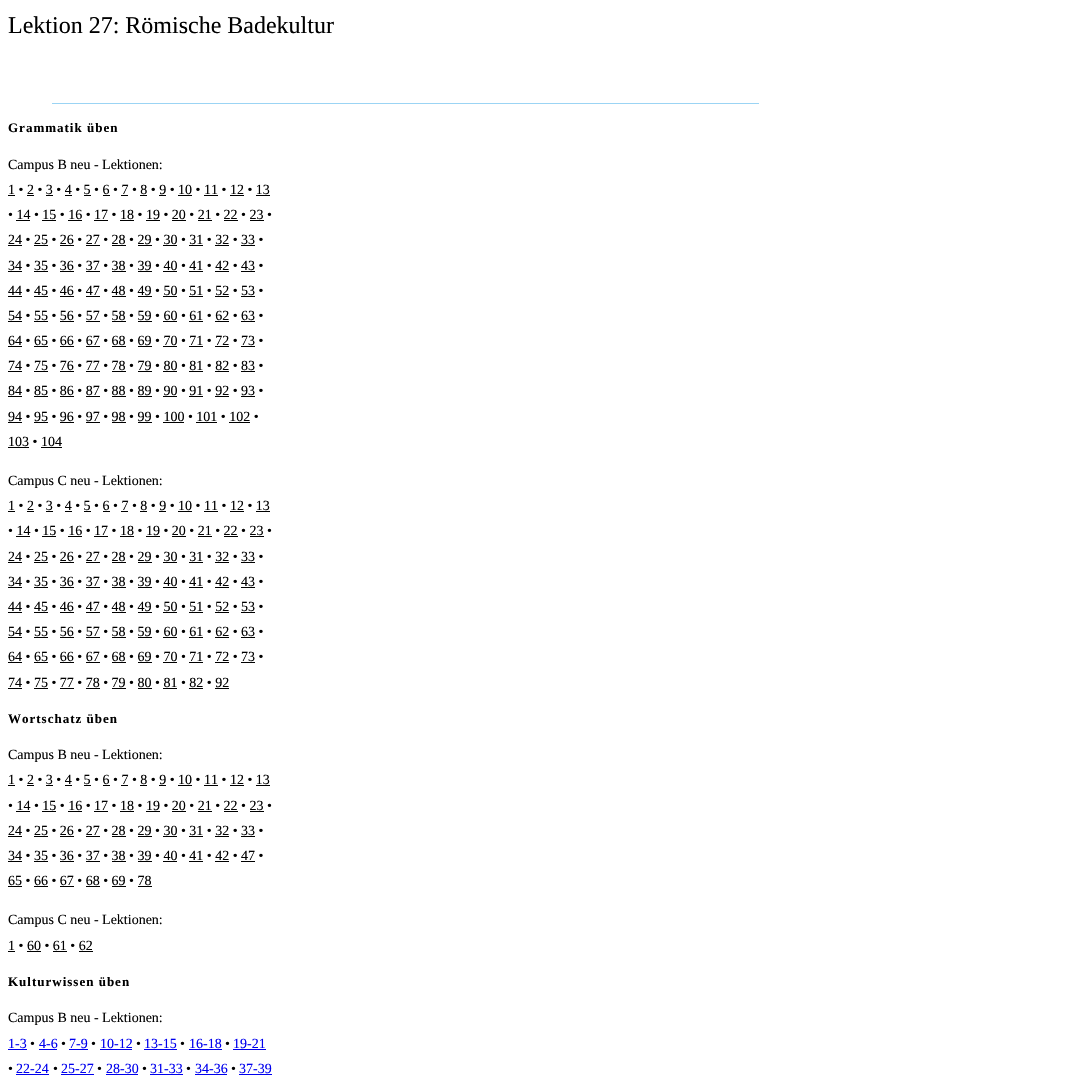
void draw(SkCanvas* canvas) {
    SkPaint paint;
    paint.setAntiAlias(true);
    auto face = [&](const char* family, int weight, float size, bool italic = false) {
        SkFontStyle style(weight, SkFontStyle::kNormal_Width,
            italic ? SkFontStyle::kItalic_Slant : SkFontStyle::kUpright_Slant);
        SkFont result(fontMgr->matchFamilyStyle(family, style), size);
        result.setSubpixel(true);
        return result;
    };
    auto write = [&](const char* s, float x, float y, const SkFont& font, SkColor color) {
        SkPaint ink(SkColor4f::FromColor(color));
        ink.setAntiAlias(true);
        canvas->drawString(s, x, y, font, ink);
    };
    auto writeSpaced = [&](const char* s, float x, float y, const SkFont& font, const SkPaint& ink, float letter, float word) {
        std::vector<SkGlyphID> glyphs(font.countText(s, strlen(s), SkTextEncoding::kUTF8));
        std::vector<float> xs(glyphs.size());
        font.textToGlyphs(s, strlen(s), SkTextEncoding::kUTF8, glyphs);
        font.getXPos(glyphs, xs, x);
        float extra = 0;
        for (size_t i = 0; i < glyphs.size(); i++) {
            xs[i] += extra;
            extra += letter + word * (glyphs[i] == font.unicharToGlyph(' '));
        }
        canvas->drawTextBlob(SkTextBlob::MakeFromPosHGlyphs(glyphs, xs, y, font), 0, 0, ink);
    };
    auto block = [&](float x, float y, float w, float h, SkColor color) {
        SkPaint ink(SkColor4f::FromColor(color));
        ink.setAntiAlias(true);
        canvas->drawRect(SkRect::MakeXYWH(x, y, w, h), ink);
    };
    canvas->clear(SK_ColorWHITE);
    auto kFont1 = face("Liberation Serif", 400, 24);
    write("Lektion 27: Römische Badekultur", 8, 33, kFont1, SK_ColorBLACK);
    block(52, 103, 707, 1, SkColorSetRGB(155, 212, 244));
    auto kFont2 = face("Liberation Serif", 700, 13);
    paint.setColor(SK_ColorBLACK);
    writeSpaced("Grammatik üben", 8, 132, kFont2, paint, 1, 0);
    auto kFont3 = face("Liberation Serif", 400, 14);
    write("Campus B neu - Lektionen:", 8, 169, kFont3, SK_ColorBLACK);
    write("1 • 2 • 3 • 4 • 5 • 6 • 7 • 8 • 9 • 10 • 11 • 12 • 13", 8, 194, kFont3, SK_ColorBLACK);
    block(8, 195, 7, 1, SK_ColorBLACK);
    block(27, 195, 7, 1, SK_ColorBLACK);
    block(46, 195, 7, 1, SK_ColorBLACK);
    block(65, 195, 7, 1, SK_ColorBLACK);
    block(84, 195, 7, 1, SK_ColorBLACK);
    block(103, 195, 7, 1, SK_ColorBLACK);
    block(121, 195, 7, 1, SK_ColorBLACK);
    block(140, 195, 7, 1, SK_ColorBLACK);
    block(159, 195, 7, 1, SK_ColorBLACK);
    block(178, 195, 14, 1, SK_ColorBLACK);
    block(204, 195, 14, 1, SK_ColorBLACK);
    block(230, 195, 14, 1, SK_ColorBLACK);
    block(256, 195, 14, 1, SK_ColorBLACK);
    write("• 14 • 15 • 16 • 17 • 18 • 19 • 20 • 21 • 22 • 23 •", 8, 219, kFont3, SK_ColorBLACK);
    block(16, 220, 14, 1, SK_ColorBLACK);
    block(42, 220, 14, 1, SK_ColorBLACK);
    block(68, 220, 14, 1, SK_ColorBLACK);
    block(94, 220, 14, 1, SK_ColorBLACK);
    block(120, 220, 14, 1, SK_ColorBLACK);
    block(146, 220, 14, 1, SK_ColorBLACK);
    block(172, 220, 14, 1, SK_ColorBLACK);
    block(198, 220, 14, 1, SK_ColorBLACK);
    block(224, 220, 14, 1, SK_ColorBLACK);
    block(250, 220, 14, 1, SK_ColorBLACK);
    write("24 • 25 • 26 • 27 • 28 • 29 • 30 • 31 • 32 • 33 •", 8, 244, kFont3, SK_ColorBLACK);
    block(8, 245, 14, 1, SK_ColorBLACK);
    block(34, 245, 14, 1, SK_ColorBLACK);
    block(60, 245, 14, 1, SK_ColorBLACK);
    block(86, 245, 14, 1, SK_ColorBLACK);
    block(112, 245, 14, 1, SK_ColorBLACK);
    block(138, 245, 14, 1, SK_ColorBLACK);
    block(163, 245, 14, 1, SK_ColorBLACK);
    block(189, 245, 14, 1, SK_ColorBLACK);
    block(215, 245, 14, 1, SK_ColorBLACK);
    block(241, 245, 14, 1, SK_ColorBLACK);
    write("34 • 35 • 36 • 37 • 38 • 39 • 40 • 41 • 42 • 43 •", 8, 270, kFont3, SK_ColorBLACK);
    block(8, 271, 14, 1, SK_ColorBLACK);
    block(34, 271, 14, 1, SK_ColorBLACK);
    block(60, 271, 14, 1, SK_ColorBLACK);
    block(86, 271, 14, 1, SK_ColorBLACK);
    block(112, 271, 14, 1, SK_ColorBLACK);
    block(138, 271, 14, 1, SK_ColorBLACK);
    block(163, 271, 14, 1, SK_ColorBLACK);
    block(189, 271, 14, 1, SK_ColorBLACK);
    block(215, 271, 14, 1, SK_ColorBLACK);
    block(241, 271, 14, 1, SK_ColorBLACK);
    write("44 • 45 • 46 • 47 • 48 • 49 • 50 • 51 • 52 • 53 •", 8, 295, kFont3, SK_ColorBLACK);
    block(8, 296, 14, 1, SK_ColorBLACK);
    block(34, 296, 14, 1, SK_ColorBLACK);
    block(60, 296, 14, 1, SK_ColorBLACK);
    block(86, 296, 14, 1, SK_ColorBLACK);
    block(112, 296, 14, 1, SK_ColorBLACK);
    block(138, 296, 14, 1, SK_ColorBLACK);
    block(163, 296, 14, 1, SK_ColorBLACK);
    block(189, 296, 14, 1, SK_ColorBLACK);
    block(215, 296, 14, 1, SK_ColorBLACK);
    block(241, 296, 14, 1, SK_ColorBLACK);
    write("54 • 55 • 56 • 57 • 58 • 59 • 60 • 61 • 62 • 63 •", 8, 320, kFont3, SK_ColorBLACK);
    block(8, 321, 14, 1, SK_ColorBLACK);
    block(34, 321, 14, 1, SK_ColorBLACK);
    block(60, 321, 14, 1, SK_ColorBLACK);
    block(86, 321, 14, 1, SK_ColorBLACK);
    block(112, 321, 14, 1, SK_ColorBLACK);
    block(138, 321, 14, 1, SK_ColorBLACK);
    block(163, 321, 14, 1, SK_ColorBLACK);
    block(189, 321, 14, 1, SK_ColorBLACK);
    block(215, 321, 14, 1, SK_ColorBLACK);
    block(241, 321, 14, 1, SK_ColorBLACK);
    write("64 • 65 • 66 • 67 • 68 • 69 • 70 • 71 • 72 • 73 •", 8, 345, kFont3, SK_ColorBLACK);
    block(8, 346, 14, 1, SK_ColorBLACK);
    block(34, 346, 14, 1, SK_ColorBLACK);
    block(60, 346, 14, 1, SK_ColorBLACK);
    block(86, 346, 14, 1, SK_ColorBLACK);
    block(112, 346, 14, 1, SK_ColorBLACK);
    block(138, 346, 14, 1, SK_ColorBLACK);
    block(163, 346, 14, 1, SK_ColorBLACK);
    block(189, 346, 14, 1, SK_ColorBLACK);
    block(215, 346, 14, 1, SK_ColorBLACK);
    block(241, 346, 14, 1, SK_ColorBLACK);
    write("74 • 75 • 76 • 77 • 78 • 79 • 80 • 81 • 82 • 83 •", 8, 370, kFont3, SK_ColorBLACK);
    block(8, 371, 14, 1, SK_ColorBLACK);
    block(34, 371, 14, 1, SK_ColorBLACK);
    block(60, 371, 14, 1, SK_ColorBLACK);
    block(86, 371, 14, 1, SK_ColorBLACK);
    block(112, 371, 14, 1, SK_ColorBLACK);
    block(138, 371, 14, 1, SK_ColorBLACK);
    block(163, 371, 14, 1, SK_ColorBLACK);
    block(189, 371, 14, 1, SK_ColorBLACK);
    block(215, 371, 14, 1, SK_ColorBLACK);
    block(241, 371, 14, 1, SK_ColorBLACK);
    write("84 • 85 • 86 • 87 • 88 • 89 • 90 • 91 • 92 • 93 •", 8, 395, kFont3, SK_ColorBLACK);
    block(8, 396, 14, 1, SK_ColorBLACK);
    block(34, 396, 14, 1, SK_ColorBLACK);
    block(60, 396, 14, 1, SK_ColorBLACK);
    block(86, 396, 14, 1, SK_ColorBLACK);
    block(112, 396, 14, 1, SK_ColorBLACK);
    block(138, 396, 14, 1, SK_ColorBLACK);
    block(163, 396, 14, 1, SK_ColorBLACK);
    block(189, 396, 14, 1, SK_ColorBLACK);
    block(215, 396, 14, 1, SK_ColorBLACK);
    block(241, 396, 14, 1, SK_ColorBLACK);
    write("94 • 95 • 96 • 97 • 98 • 99 • 100 • 101 • 102 •", 8, 421, kFont3, SK_ColorBLACK);
    block(8, 422, 14, 1, SK_ColorBLACK);
    block(34, 422, 14, 1, SK_ColorBLACK);
    block(60, 422, 14, 1, SK_ColorBLACK);
    block(86, 422, 14, 1, SK_ColorBLACK);
    block(112, 422, 14, 1, SK_ColorBLACK);
    block(138, 422, 14, 1, SK_ColorBLACK);
    block(163, 422, 21, 1, SK_ColorBLACK);
    block(196, 422, 21, 1, SK_ColorBLACK);
    block(229, 422, 21, 1, SK_ColorBLACK);
    write("103 • 104", 8, 446, kFont3, SK_ColorBLACK);
    block(8, 447, 21, 1, SK_ColorBLACK);
    block(41, 447, 21, 1, SK_ColorBLACK);
    write("Campus C neu - Lektionen:", 8, 485, kFont3, SK_ColorBLACK);
    write("1 • 2 • 3 • 4 • 5 • 6 • 7 • 8 • 9 • 10 • 11 • 12 • 13", 8, 510, kFont3, SK_ColorBLACK);
    block(8, 511, 7, 1, SK_ColorBLACK);
    block(27, 511, 7, 1, SK_ColorBLACK);
    block(46, 511, 7, 1, SK_ColorBLACK);
    block(65, 511, 7, 1, SK_ColorBLACK);
    block(84, 511, 7, 1, SK_ColorBLACK);
    block(103, 511, 7, 1, SK_ColorBLACK);
    block(121, 511, 7, 1, SK_ColorBLACK);
    block(140, 511, 7, 1, SK_ColorBLACK);
    block(159, 511, 7, 1, SK_ColorBLACK);
    block(178, 511, 14, 1, SK_ColorBLACK);
    block(204, 511, 14, 1, SK_ColorBLACK);
    block(230, 511, 14, 1, SK_ColorBLACK);
    block(256, 511, 14, 1, SK_ColorBLACK);
    write("• 14 • 15 • 16 • 17 • 18 • 19 • 20 • 21 • 22 • 23 •", 8, 535, kFont3, SK_ColorBLACK);
    block(16, 536, 14, 1, SK_ColorBLACK);
    block(42, 536, 14, 1, SK_ColorBLACK);
    block(68, 536, 14, 1, SK_ColorBLACK);
    block(94, 536, 14, 1, SK_ColorBLACK);
    block(120, 536, 14, 1, SK_ColorBLACK);
    block(146, 536, 14, 1, SK_ColorBLACK);
    block(172, 536, 14, 1, SK_ColorBLACK);
    block(198, 536, 14, 1, SK_ColorBLACK);
    block(224, 536, 14, 1, SK_ColorBLACK);
    block(250, 536, 14, 1, SK_ColorBLACK);
    write("24 • 25 • 26 • 27 • 28 • 29 • 30 • 31 • 32 • 33 •", 8, 561, kFont3, SK_ColorBLACK);
    block(8, 562, 14, 1, SK_ColorBLACK);
    block(34, 562, 14, 1, SK_ColorBLACK);
    block(60, 562, 14, 1, SK_ColorBLACK);
    block(86, 562, 14, 1, SK_ColorBLACK);
    block(112, 562, 14, 1, SK_ColorBLACK);
    block(138, 562, 14, 1, SK_ColorBLACK);
    block(163, 562, 14, 1, SK_ColorBLACK);
    block(189, 562, 14, 1, SK_ColorBLACK);
    block(215, 562, 14, 1, SK_ColorBLACK);
    block(241, 562, 14, 1, SK_ColorBLACK);
    write("34 • 35 • 36 • 37 • 38 • 39 • 40 • 41 • 42 • 43 •", 8, 586, kFont3, SK_ColorBLACK);
    block(8, 587, 14, 1, SK_ColorBLACK);
    block(34, 587, 14, 1, SK_ColorBLACK);
    block(60, 587, 14, 1, SK_ColorBLACK);
    block(86, 587, 14, 1, SK_ColorBLACK);
    block(112, 587, 14, 1, SK_ColorBLACK);
    block(138, 587, 14, 1, SK_ColorBLACK);
    block(163, 587, 14, 1, SK_ColorBLACK);
    block(189, 587, 14, 1, SK_ColorBLACK);
    block(215, 587, 14, 1, SK_ColorBLACK);
    block(241, 587, 14, 1, SK_ColorBLACK);
    write("44 • 45 • 46 • 47 • 48 • 49 • 50 • 51 • 52 • 53 •", 8, 611, kFont3, SK_ColorBLACK);
    block(8, 612, 14, 1, SK_ColorBLACK);
    block(34, 612, 14, 1, SK_ColorBLACK);
    block(60, 612, 14, 1, SK_ColorBLACK);
    block(86, 612, 14, 1, SK_ColorBLACK);
    block(112, 612, 14, 1, SK_ColorBLACK);
    block(138, 612, 14, 1, SK_ColorBLACK);
    block(163, 612, 14, 1, SK_ColorBLACK);
    block(189, 612, 14, 1, SK_ColorBLACK);
    block(215, 612, 14, 1, SK_ColorBLACK);
    block(241, 612, 14, 1, SK_ColorBLACK);
    write("54 • 55 • 56 • 57 • 58 • 59 • 60 • 61 • 62 • 63 •", 8, 636, kFont3, SK_ColorBLACK);
    block(8, 637, 14, 1, SK_ColorBLACK);
    block(34, 637, 14, 1, SK_ColorBLACK);
    block(60, 637, 14, 1, SK_ColorBLACK);
    block(86, 637, 14, 1, SK_ColorBLACK);
    block(112, 637, 14, 1, SK_ColorBLACK);
    block(138, 637, 14, 1, SK_ColorBLACK);
    block(163, 637, 14, 1, SK_ColorBLACK);
    block(189, 637, 14, 1, SK_ColorBLACK);
    block(215, 637, 14, 1, SK_ColorBLACK);
    block(241, 637, 14, 1, SK_ColorBLACK);
    write("64 • 65 • 66 • 67 • 68 • 69 • 70 • 71 • 72 • 73 •", 8, 661, kFont3, SK_ColorBLACK);
    block(8, 662, 14, 1, SK_ColorBLACK);
    block(34, 662, 14, 1, SK_ColorBLACK);
    block(60, 662, 14, 1, SK_ColorBLACK);
    block(86, 662, 14, 1, SK_ColorBLACK);
    block(112, 662, 14, 1, SK_ColorBLACK);
    block(138, 662, 14, 1, SK_ColorBLACK);
    block(163, 662, 14, 1, SK_ColorBLACK);
    block(189, 662, 14, 1, SK_ColorBLACK);
    block(215, 662, 14, 1, SK_ColorBLACK);
    block(241, 662, 14, 1, SK_ColorBLACK);
    write("74 • 75 • 77 • 78 • 79 • 80 • 81 • 82 • 92", 8, 687, kFont3, SK_ColorBLACK);
    block(8, 688, 14, 1, SK_ColorBLACK);
    block(34, 688, 14, 1, SK_ColorBLACK);
    block(60, 688, 14, 1, SK_ColorBLACK);
    block(86, 688, 14, 1, SK_ColorBLACK);
    block(112, 688, 14, 1, SK_ColorBLACK);
    block(138, 688, 14, 1, SK_ColorBLACK);
    block(163, 688, 14, 1, SK_ColorBLACK);
    block(189, 688, 14, 1, SK_ColorBLACK);
    block(215, 688, 14, 1, SK_ColorBLACK);
    writeSpaced("Wortschatz üben", 8, 723, kFont2, paint, 1, 0);
    write("Campus B neu - Lektionen:", 8, 759, kFont3, SK_ColorBLACK);
    write("1 • 2 • 3 • 4 • 5 • 6 • 7 • 8 • 9 • 10 • 11 • 12 • 13", 8, 784, kFont3, SK_ColorBLACK);
    block(8, 785, 7, 1, SK_ColorBLACK);
    block(27, 785, 7, 1, SK_ColorBLACK);
    block(46, 785, 7, 1, SK_ColorBLACK);
    block(65, 785, 7, 1, SK_ColorBLACK);
    block(84, 785, 7, 1, SK_ColorBLACK);
    block(103, 785, 7, 1, SK_ColorBLACK);
    block(121, 785, 7, 1, SK_ColorBLACK);
    block(140, 785, 7, 1, SK_ColorBLACK);
    block(159, 785, 7, 1, SK_ColorBLACK);
    block(178, 785, 14, 1, SK_ColorBLACK);
    block(204, 785, 14, 1, SK_ColorBLACK);
    block(230, 785, 14, 1, SK_ColorBLACK);
    block(256, 785, 14, 1, SK_ColorBLACK);
    write("• 14 • 15 • 16 • 17 • 18 • 19 • 20 • 21 • 22 • 23 •", 8, 810, kFont3, SK_ColorBLACK);
    block(16, 811, 14, 1, SK_ColorBLACK);
    block(42, 811, 14, 1, SK_ColorBLACK);
    block(68, 811, 14, 1, SK_ColorBLACK);
    block(94, 811, 14, 1, SK_ColorBLACK);
    block(120, 811, 14, 1, SK_ColorBLACK);
    block(146, 811, 14, 1, SK_ColorBLACK);
    block(172, 811, 14, 1, SK_ColorBLACK);
    block(198, 811, 14, 1, SK_ColorBLACK);
    block(224, 811, 14, 1, SK_ColorBLACK);
    block(250, 811, 14, 1, SK_ColorBLACK);
    write("24 • 25 • 26 • 27 • 28 • 29 • 30 • 31 • 32 • 33 •", 8, 835, kFont3, SK_ColorBLACK);
    block(8, 836, 14, 1, SK_ColorBLACK);
    block(34, 836, 14, 1, SK_ColorBLACK);
    block(60, 836, 14, 1, SK_ColorBLACK);
    block(86, 836, 14, 1, SK_ColorBLACK);
    block(112, 836, 14, 1, SK_ColorBLACK);
    block(138, 836, 14, 1, SK_ColorBLACK);
    block(163, 836, 14, 1, SK_ColorBLACK);
    block(189, 836, 14, 1, SK_ColorBLACK);
    block(215, 836, 14, 1, SK_ColorBLACK);
    block(241, 836, 14, 1, SK_ColorBLACK);
    write("34 • 35 • 36 • 37 • 38 • 39 • 40 • 41 • 42 • 47 •", 8, 860, kFont3, SK_ColorBLACK);
    block(8, 861, 14, 1, SK_ColorBLACK);
    block(34, 861, 14, 1, SK_ColorBLACK);
    block(60, 861, 14, 1, SK_ColorBLACK);
    block(86, 861, 14, 1, SK_ColorBLACK);
    block(112, 861, 14, 1, SK_ColorBLACK);
    block(138, 861, 14, 1, SK_ColorBLACK);
    block(163, 861, 14, 1, SK_ColorBLACK);
    block(189, 861, 14, 1, SK_ColorBLACK);
    block(215, 861, 14, 1, SK_ColorBLACK);
    block(241, 861, 14, 1, SK_ColorBLACK);
    write("65 • 66 • 67 • 68 • 69 • 78", 8, 885, kFont3, SK_ColorBLACK);
    block(8, 886, 14, 1, SK_ColorBLACK);
    block(34, 886, 14, 1, SK_ColorBLACK);
    block(60, 886, 14, 1, SK_ColorBLACK);
    block(86, 886, 14, 1, SK_ColorBLACK);
    block(112, 886, 14, 1, SK_ColorBLACK);
    block(138, 886, 14, 1, SK_ColorBLACK);
    write("Campus C neu - Lektionen:", 8, 924, kFont3, SK_ColorBLACK);
    write("1 • 60 • 61 • 62", 8, 950, kFont3, SK_ColorBLACK);
    block(8, 951, 7, 1, SK_ColorBLACK);
    block(27, 951, 14, 1, SK_ColorBLACK);
    block(53, 951, 14, 1, SK_ColorBLACK);
    block(79, 951, 14, 1, SK_ColorBLACK);
    writeSpaced("Kulturwissen üben", 8, 986, kFont2, paint, 1, 0);
    write("Campus B neu - Lektionen:", 8, 1022, kFont3, SK_ColorBLACK);
    write("1-3", 8, 1048, kFont3, SkColorSetRGB(0, 0, 238));
    block(8, 1049, 19, 1, SkColorSetRGB(0, 0, 238));
    write("•", 30, 1048, kFont3, SK_ColorBLACK);
    write("4-6", 39, 1048, kFont3, SkColorSetRGB(0, 0, 238));
    block(39, 1049, 18, 1, SkColorSetRGB(0, 0, 238));
    write("•", 61, 1048, kFont3, SK_ColorBLACK);
    write("7-9", 69, 1048, kFont3, SkColorSetRGB(0, 0, 238));
    block(69, 1049, 19, 1, SkColorSetRGB(0, 0, 238));
    write("•", 91, 1048, kFont3, SK_ColorBLACK);
    write("10-12", 100, 1048, kFont3, SkColorSetRGB(0, 0, 238));
    block(100, 1049, 32, 1, SkColorSetRGB(0, 0, 238));
    write("•", 136, 1048, kFont3, SK_ColorBLACK);
    write("13-15", 144, 1048, kFont3, SkColorSetRGB(0, 0, 238));
    block(144, 1049, 33, 1, SkColorSetRGB(0, 0, 238));
    write("•", 180, 1048, kFont3, SK_ColorBLACK);
    write("16-18", 189, 1048, kFont3, SkColorSetRGB(0, 0, 238));
    block(189, 1049, 33, 1, SkColorSetRGB(0, 0, 238));
    write("•", 225, 1048, kFont3, SK_ColorBLACK);
    write("19-21", 233, 1048, kFont3, SkColorSetRGB(0, 0, 238));
    block(233, 1049, 33, 1, SkColorSetRGB(0, 0, 238));
    write("•", 8, 1073, kFont3, SK_ColorBLACK);
    write("22-24", 16, 1073, kFont3, SkColorSetRGB(0, 0, 238));
    block(16, 1074, 33, 1, SkColorSetRGB(0, 0, 238));
    write("•", 53, 1073, kFont3, SK_ColorBLACK);
    write("25-27", 61, 1073, kFont3, SkColorSetRGB(0, 0, 238));
    block(61, 1074, 33, 1, SkColorSetRGB(0, 0, 238));
    write("•", 97, 1073, kFont3, SK_ColorBLACK);
    write("28-30", 106, 1073, kFont3, SkColorSetRGB(0, 0, 238));
    block(106, 1074, 32, 1, SkColorSetRGB(0, 0, 238));
    write("•", 142, 1073, kFont3, SK_ColorBLACK);
    write("31-33", 150, 1073, kFont3, SkColorSetRGB(0, 0, 238));
    block(150, 1074, 33, 1, SkColorSetRGB(0, 0, 238));
    write("•", 186, 1073, kFont3, SK_ColorBLACK);
    write("34-36", 195, 1073, kFont3, SkColorSetRGB(0, 0, 238));
    block(195, 1074, 32, 1, SkColorSetRGB(0, 0, 238));
    write("•", 231, 1073, kFont3, SK_ColorBLACK);
    write("37-39", 239, 1073, kFont3, SkColorSetRGB(0, 0, 238));
    block(239, 1074, 33, 1, SkColorSetRGB(0, 0, 238));
}
